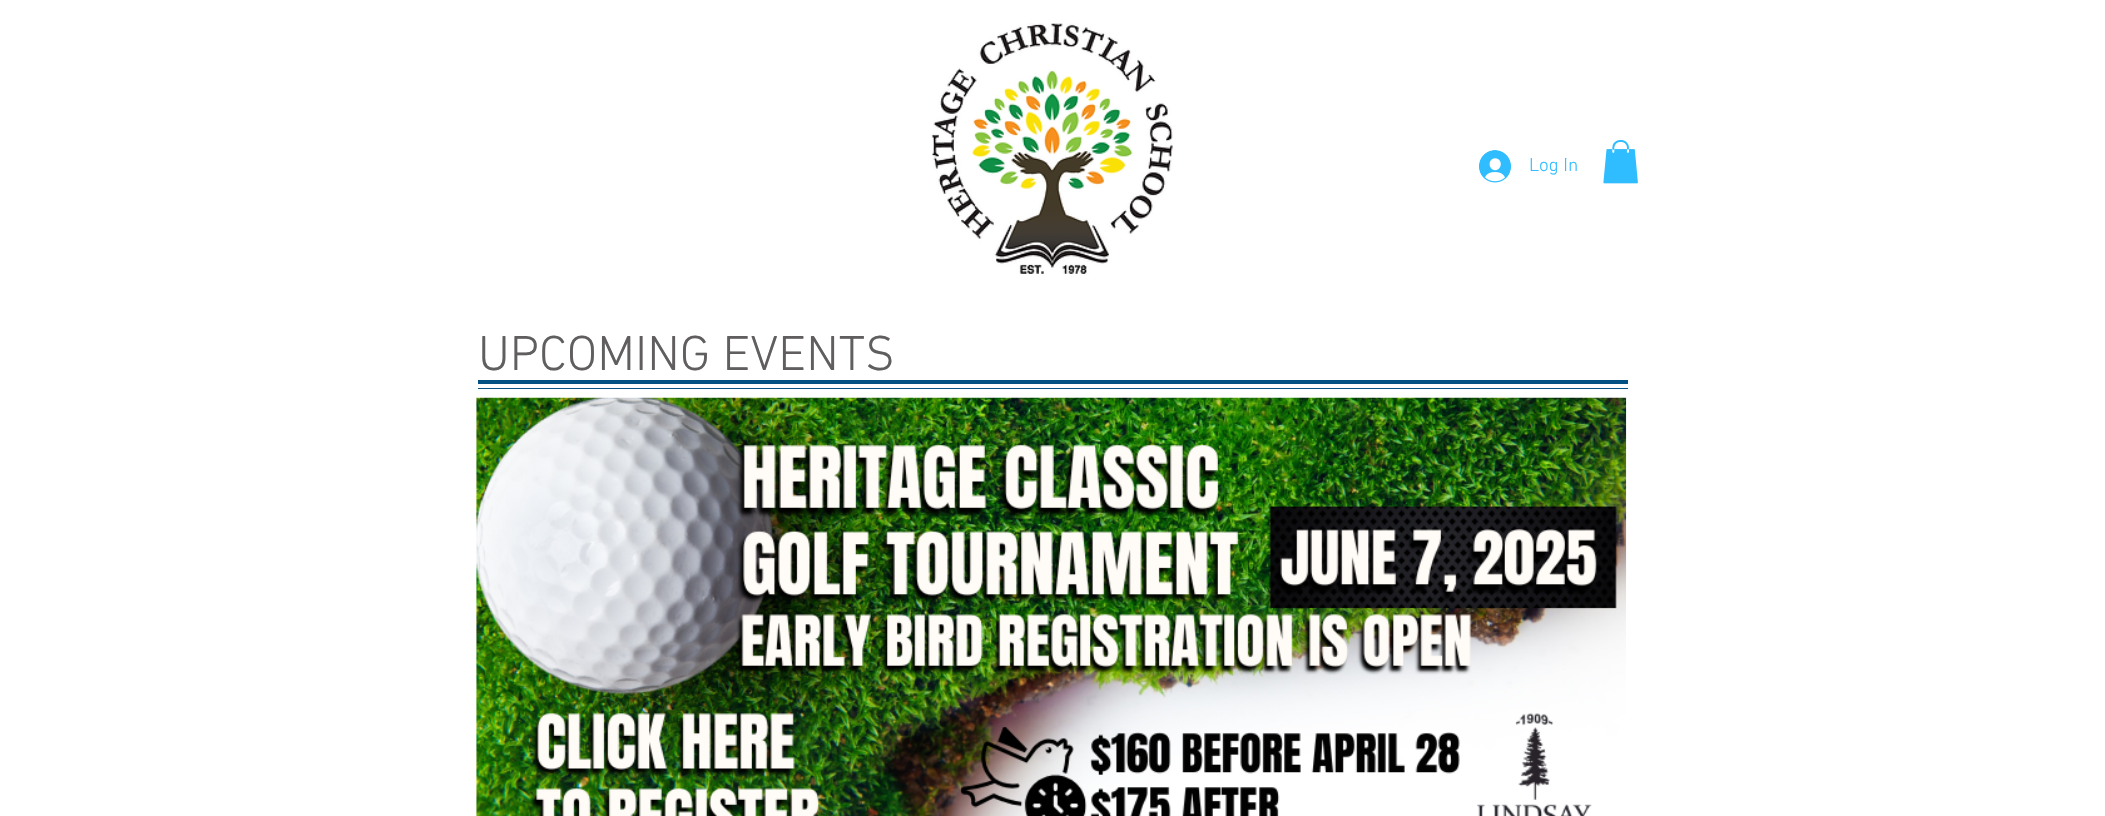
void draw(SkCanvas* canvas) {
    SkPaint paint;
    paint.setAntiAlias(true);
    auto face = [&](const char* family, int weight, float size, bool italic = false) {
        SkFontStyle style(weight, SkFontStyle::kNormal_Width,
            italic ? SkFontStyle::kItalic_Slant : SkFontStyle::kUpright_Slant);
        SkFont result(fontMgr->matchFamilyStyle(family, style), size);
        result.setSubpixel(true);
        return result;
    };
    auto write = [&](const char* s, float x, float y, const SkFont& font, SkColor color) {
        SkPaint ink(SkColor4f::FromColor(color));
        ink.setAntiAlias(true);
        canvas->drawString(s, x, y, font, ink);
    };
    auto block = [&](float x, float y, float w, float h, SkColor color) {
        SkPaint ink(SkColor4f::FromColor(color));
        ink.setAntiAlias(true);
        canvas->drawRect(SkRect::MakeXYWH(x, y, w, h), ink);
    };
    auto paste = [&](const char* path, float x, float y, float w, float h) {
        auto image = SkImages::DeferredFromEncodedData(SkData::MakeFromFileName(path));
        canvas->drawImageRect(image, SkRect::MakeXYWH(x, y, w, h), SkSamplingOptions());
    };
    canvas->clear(SK_ColorWHITE);
    paste("pic1.png", 931, 23, 242, 251);
    paste("pic2.png", 1479, 150, 32, 33);
    auto kFont1 = face("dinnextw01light", 300, 19);
    write("Log In", 1529, 171, kFont1, SkColorSetRGB(48, 189, 255));
    paste("pic3.png", 1603, 140, 35, 44);
    auto kFont2 = face("dinnextw01light", 300, 50);
    write("UPCOMING EVENTS", 478, 370, kFont2, SkColorSetRGB(96, 94, 94));
    block(478, 380, 1150, 4, SkColorSetRGB(4, 81, 132));
    block(478, 388, 1150, 1, SkColorSetRGB(4, 81, 132));
    paste("pic4.png", 476, 397, 1151, 419);
}
